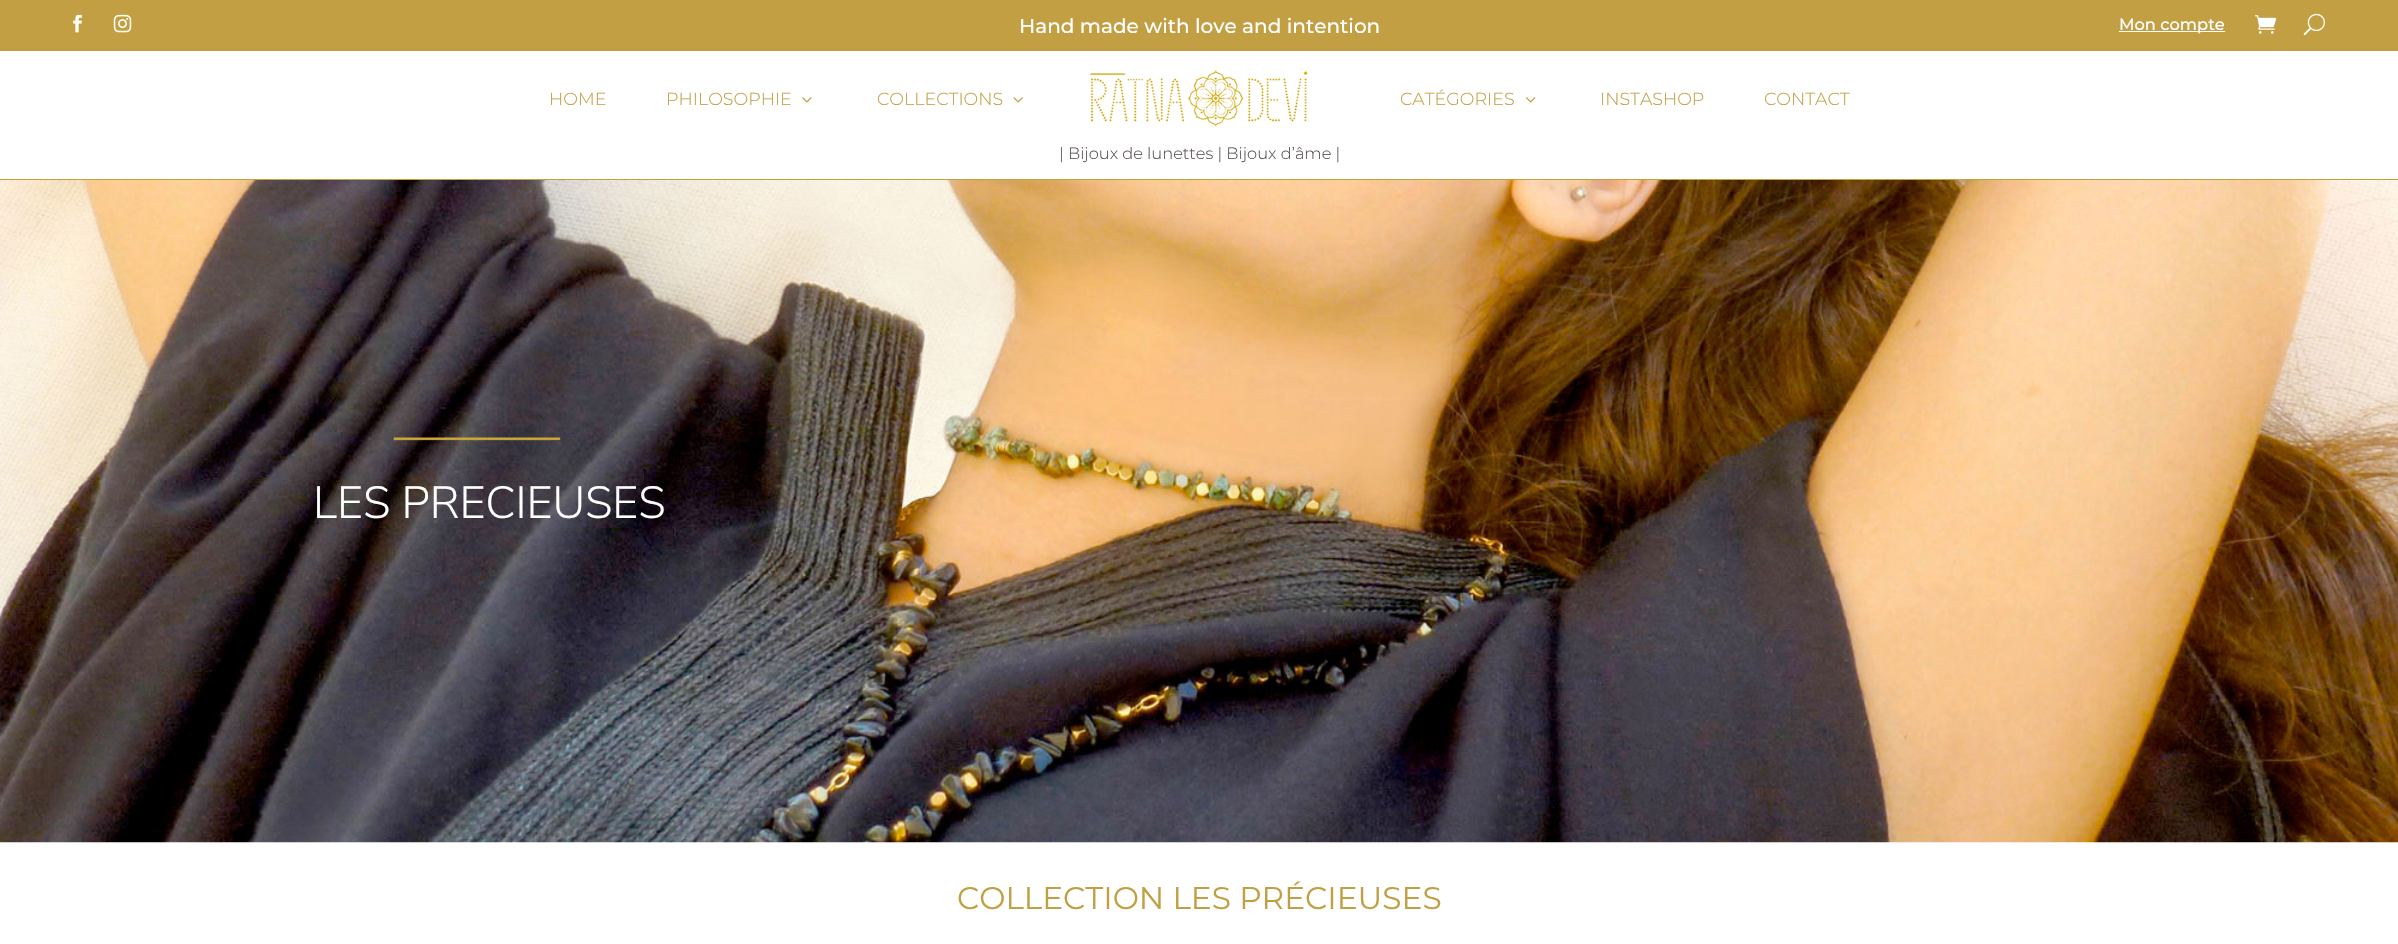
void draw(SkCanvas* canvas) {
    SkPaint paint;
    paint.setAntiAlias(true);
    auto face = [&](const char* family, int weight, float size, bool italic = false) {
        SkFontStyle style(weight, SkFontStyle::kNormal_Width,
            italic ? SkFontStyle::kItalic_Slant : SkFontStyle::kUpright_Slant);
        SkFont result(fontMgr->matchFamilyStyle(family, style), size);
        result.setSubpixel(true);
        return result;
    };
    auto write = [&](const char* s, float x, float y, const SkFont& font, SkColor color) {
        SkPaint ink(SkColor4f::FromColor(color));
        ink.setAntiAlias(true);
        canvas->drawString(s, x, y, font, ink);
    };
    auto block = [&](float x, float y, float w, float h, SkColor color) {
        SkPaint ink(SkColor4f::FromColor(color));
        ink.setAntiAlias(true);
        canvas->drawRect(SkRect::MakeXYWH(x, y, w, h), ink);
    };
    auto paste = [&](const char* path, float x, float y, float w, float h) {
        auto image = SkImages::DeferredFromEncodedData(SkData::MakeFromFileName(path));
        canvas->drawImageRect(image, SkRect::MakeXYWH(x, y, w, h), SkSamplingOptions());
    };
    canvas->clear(SK_ColorWHITE);
    block(0, 0, 2398, 51, SkColorSetRGB(194, 159, 67));
    paste("pic1.png", 73, 14, 9, 19);
    paste("pic2.png", 113, 14, 19, 19);
    auto kFont1 = face("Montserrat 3", 100, 20);
    write("Hand made with love and intention", 1019, 33, kFont1, SK_ColorWHITE);
    block(2119, 31, 106, 1, SK_ColorWHITE);
    auto kFont2 = face("Montserrat 3", 100, 16.25f);
    write("Mon compte", 2119, 30, kFont2, SK_ColorWHITE);
    paste("pic3.png", 2255, 15, 22, 19);
    paste("pic4.png", 2303, 13, 22, 23);
    auto kFont3 = face("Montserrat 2", 100, 17.5f);
    write("HOME", 549, 105, kFont3, SkColorSetRGB(194, 159, 67));
    write("PHILOSOPHIE", 666, 105, kFont3, SkColorSetRGB(194, 159, 67));
    paste("pic5.png", 802, 97, 10, 6);
    write("COLLECTIONS", 877, 105, kFont3, SkColorSetRGB(194, 159, 67));
    paste("pic6.png", 1013, 97, 10, 6);
    paste("pic7.png", 1089, 70, 220, 57);
    write("CATÉGORIES", 1400, 105, kFont3, SkColorSetRGB(194, 159, 67));
    paste("pic8.png", 1526, 97, 10, 6);
    write("INSTASHOP", 1600, 105, kFont3, SkColorSetRGB(194, 159, 67));
    write("CONTACT", 1764, 105, kFont3, SkColorSetRGB(194, 159, 67));
    block(0, 179, 2398, 1, SkColorSetRGB(194, 159, 67));
    auto kFont4 = face("Montserrat 2", 100, 16.25f);
    write("| Bijoux de lunettes | Bijoux d’âme |", 1059, 159, kFont4, SkColorSetRGB(88, 80, 80));
    paste("pic9.png", 0, 180, 2398, 663);
    paste("pic10.png", 393, 437, 168, 4);
    auto kFont5 = face("Nunito Sans", 200, 45);
    write("LES PRECIEUSES", 313, 518, kFont5, SK_ColorWHITE);
    auto kFont6 = face("Montserrat", 100, 31.25f);
    write("COLLECTION LES PRÉCIEUSES", 957, 909, kFont6, SkColorSetRGB(194, 159, 67));
}
